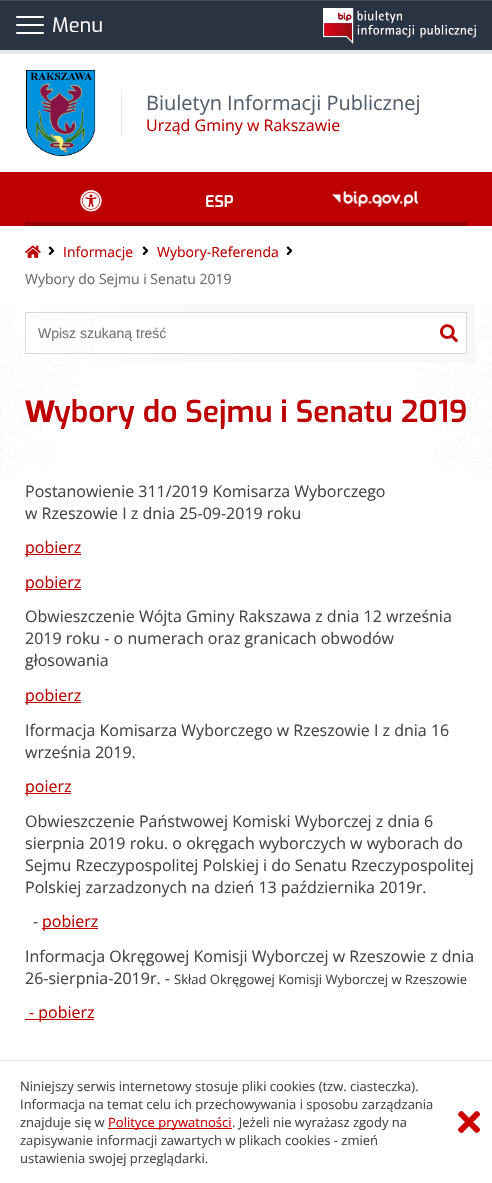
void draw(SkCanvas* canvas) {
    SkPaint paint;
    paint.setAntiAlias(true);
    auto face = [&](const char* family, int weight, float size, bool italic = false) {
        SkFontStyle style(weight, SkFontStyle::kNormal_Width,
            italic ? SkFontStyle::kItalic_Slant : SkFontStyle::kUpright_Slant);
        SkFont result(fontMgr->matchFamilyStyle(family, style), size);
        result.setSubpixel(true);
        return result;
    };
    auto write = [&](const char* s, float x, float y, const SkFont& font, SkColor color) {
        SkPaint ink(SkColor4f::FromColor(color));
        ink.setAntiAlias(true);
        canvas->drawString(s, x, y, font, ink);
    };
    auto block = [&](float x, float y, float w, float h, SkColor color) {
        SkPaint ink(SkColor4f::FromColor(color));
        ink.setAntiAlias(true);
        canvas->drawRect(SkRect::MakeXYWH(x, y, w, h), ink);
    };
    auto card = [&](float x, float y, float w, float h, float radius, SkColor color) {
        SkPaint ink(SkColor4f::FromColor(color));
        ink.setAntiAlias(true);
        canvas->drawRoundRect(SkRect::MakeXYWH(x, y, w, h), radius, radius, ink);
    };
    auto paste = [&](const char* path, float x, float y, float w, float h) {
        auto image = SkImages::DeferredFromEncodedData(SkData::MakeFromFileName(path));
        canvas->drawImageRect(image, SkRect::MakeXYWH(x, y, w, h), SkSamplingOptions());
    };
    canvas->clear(SK_ColorWHITE);
    block(0, 1, 492, 49, SkColorSetRGB(42, 51, 65));
    block(0, 0, 492, 1, SkColorSetRGB(67, 78, 94));
    block(0, 50, 492, 4, SkColorSetRGB(232, 232, 232));
    card(16, 16, 28, 2, 1, SK_ColorWHITE);
    card(16, 24, 28, 2, 1, SK_ColorWHITE);
    card(16, 32, 28, 2, 1, SK_ColorWHITE);
    auto kFont1 = face("Exo", 400, 20);
    write("Menu", 52, 32, kFont1, SK_ColorWHITE);
    paste("pic1.png", 323, 8, 153, 36);
    paste("pic2.png", 26, 70, 70, 86);
    block(121, 90, 1, 45, SkColorSetRGB(232, 232, 232));
    auto kFont2 = face("Open Sans", 400, 20);
    write("Biuletyn Informacji Publicznej", 146, 110, kFont2, SkColorSetRGB(85, 94, 108));
    auto kFont3 = face("Open Sans", 400, 16);
    write("Urząd Gminy w Rakszawie", 146, 131, kFont3, SkColorSetRGB(189, 0, 0));
    block(0, 172, 492, 54, SkColorSetRGB(189, 0, 0));
    block(25, 222, 442, 4, SkColorSetRGB(147, 0, 0));
    paste("pic3.png", 80, 190, 22, 22);
    auto kFont4 = face("Exo", 600, 16);
    write("ESP", 205, 207, kFont4, SK_ColorWHITE);
    paste("pic4.png", 332, 191, 86, 16);
    paste("pic5.png", 25, 245, 16, 13);
    paste("pic6.png", 48, 246, 7, 10);
    auto kFont5 = face("Open Sans", 400, 14);
    write("Informacje", 63, 257, kFont5, SkColorSetRGB(189, 0, 0));
    paste("pic6.png", 142, 246, 7, 10);
    write("Wybory-Referenda", 157, 257, kFont5, SkColorSetRGB(189, 0, 0));
    paste("pic6.png", 286, 246, 7, 10);
    write("Wybory do Sejmu i Senatu 2019", 25, 284, kFont5, SkColorSetRGB(106, 106, 106));
    paste("pic7.png", 0, 307, 492, 170);
    {
        const SkColor colors[] = {SK_ColorWHITE, SkColorSetRGB(247, 247, 247), SkColorSetRGB(247, 247, 247)};
        const float stops[] = {0, 0.5f, 1};
        const SkPoint ends[] = {{25, 333}, {475, 333}};
        paint.setShader(SkGradientShader::MakeLinear(ends, colors, stops, 3, SkTileMode::kClamp));
        paint.setAlpha(255);
    }
    canvas->drawRect(SkRect::MakeXYWH(25, 304, 450, 58), paint);
    paint.setStyle(SkPaint::kStroke_Style);
    paint.setStrokeWidth(1);
    paint.setShader(nullptr);
    paint.setColor(SkColorSetRGB(216, 216, 216));
    canvas->drawRect(SkRect::MakeXYWH(25.5f, 312.5f, 441, 41), paint);
    block(95, 313, 371, 40, SK_ColorWHITE);
    auto kFont6 = face("Liberation Sans", 400, 14);
    write("Wpisz szukaną treść", 38, 338, kFont6, SkColorSetRGB(117, 117, 117));
    paste("pic8.png", 440, 324, 18, 19);
    auto kFont7 = face("Noto Sans", 800, 30);
    write("W", 25, 422, kFont7, SkColorSetRGB(189, 0, 0));
    auto kFont8 = face("Exo", 600, 30);
    write("ybory do Sejmu i Senatu 2019", 54, 422, kFont8, SkColorSetRGB(189, 0, 0));
    write("Postanowienie 311/2019 Komisarza Wyborczego", 25, 497, kFont3, SkColorSetRGB(68, 68, 68));
    write("w Rzeszowie I z dnia 25-09-2019 roku", 25, 519, kFont3, SkColorSetRGB(68, 68, 68));
    block(25, 554, 56, 1, SkColorSetRGB(189, 0, 0));
    write("pobierz", 25, 553, kFont3, SkColorSetRGB(189, 0, 0));
    block(25, 589, 56, 1, SkColorSetRGB(189, 0, 0));
    write("pobierz", 25, 588, kFont3, SkColorSetRGB(189, 0, 0));
    write("Obwieszczenie Wójta Gminy Rakszawa z dnia 12 września", 25, 622, kFont3, SkColorSetRGB(68, 68, 68));
    write("2019 roku - o numerach oraz granicach obwodów", 25, 644, kFont3, SkColorSetRGB(68, 68, 68));
    write("głosowania", 25, 666, kFont3, SkColorSetRGB(68, 68, 68));
    block(25, 702, 56, 1, SkColorSetRGB(189, 0, 0));
    write("pobierz", 25, 701, kFont3, SkColorSetRGB(189, 0, 0));
    write("Iformacja Komisarza Wyborczego w Rzeszowie I z dnia 16", 25, 736, kFont3, SkColorSetRGB(68, 68, 68));
    write("września 2019.", 25, 758, kFont3, SkColorSetRGB(68, 68, 68));
    block(25, 793, 46, 1, SkColorSetRGB(189, 0, 0));
    write("poierz", 25, 792, kFont3, SkColorSetRGB(189, 0, 0));
    write("Obwieszczenie Państwowej Komiski Wyborczej z dnia 6", 25, 827, kFont3, SkColorSetRGB(68, 68, 68));
    write("sierpnia 2019 roku. o okręgach wyborczych w wyborach do", 25, 849, kFont3, SkColorSetRGB(68, 68, 68));
    write("Sejmu Rzeczypospolitej Polskiej i do Senatu Rzeczypospolitej", 25, 871, kFont3, SkColorSetRGB(68, 68, 68));
    write("Polskiej zarzadzonych na dzień 13 października 2019r.", 25, 893, kFont3, SkColorSetRGB(68, 68, 68));
    write("-", 33, 927, kFont3, SkColorSetRGB(68, 68, 68));
    block(42, 928, 56, 1, SkColorSetRGB(189, 0, 0));
    write("pobierz", 42, 927, kFont3, SkColorSetRGB(189, 0, 0));
    write("Informacja Okręgowej Komisji Wyborczej w Rzeszowie z dnia", 25, 962, kFont3, SkColorSetRGB(68, 68, 68));
    write("26-sierpnia-2019r. -", 25, 984, kFont3, SkColorSetRGB(68, 68, 68));
    auto kFont9 = face("Open Sans", 400, 13);
    write("Skład Okręgowej Komisji Wyborczej w Rzeszowie", 174, 984, kFont9, SkColorSetRGB(68, 68, 68));
    block(25, 1019, 69, 1, SkColorSetRGB(189, 0, 0));
    write("- pobierz", 29, 1018, kFont3, SkColorSetRGB(189, 0, 0));
    block(25, 1121, 442, 38, SkColorSetRGB(251, 251, 251));
    paint.setStyle(SkPaint::kFill_Style);
    {
        const SkColor colors[] = {SkColorSetARGB(230, 255, 255, 255), SK_ColorWHITE};
        const float stops[] = {0, 1};
        const SkPoint ends[] = {{246, 1061}, {246, 1183}};
        paint.setShader(SkGradientShader::MakeLinear(ends, colors, stops, 2, SkTileMode::kClamp));
        paint.setAlpha(255);
    }
    canvas->drawRect(SkRect::MakeXYWH(25, 1121, 442, 38), paint);
    block(0, 1060, 492, 1, SkColorSetRGB(230, 230, 230));
    write("Niniejszy serwis internetowy stosuje pliki cookies (tzw. ciasteczka).", 20, 1091, kFont9, SkColorSetRGB(68, 68, 68));
    write("Informacja na temat celu ich przechowywania i sposobu zarządzania", 20, 1109, kFont9, SkColorSetRGB(68, 68, 68));
    write("znajduje się w", 20, 1127, kFont9, SkColorSetRGB(68, 68, 68));
    block(108, 1128, 124, 1, SkColorSetRGB(205, 0, 0));
    write("Polityce prywatności", 108, 1127, kFont9, SkColorSetRGB(205, 0, 0));
    write(". Jeżeli nie wyrażasz zgody na", 232, 1127, kFont9, SkColorSetRGB(68, 68, 68));
    write("zapisywanie informacji zawartych w plikach cookies - zmień", 20, 1145, kFont9, SkColorSetRGB(68, 68, 68));
    write("ustawienia swojej przeglądarki.", 20, 1163, kFont9, SkColorSetRGB(68, 68, 68));
    paste("pic9.png", 458, 1111, 22, 22);
}
